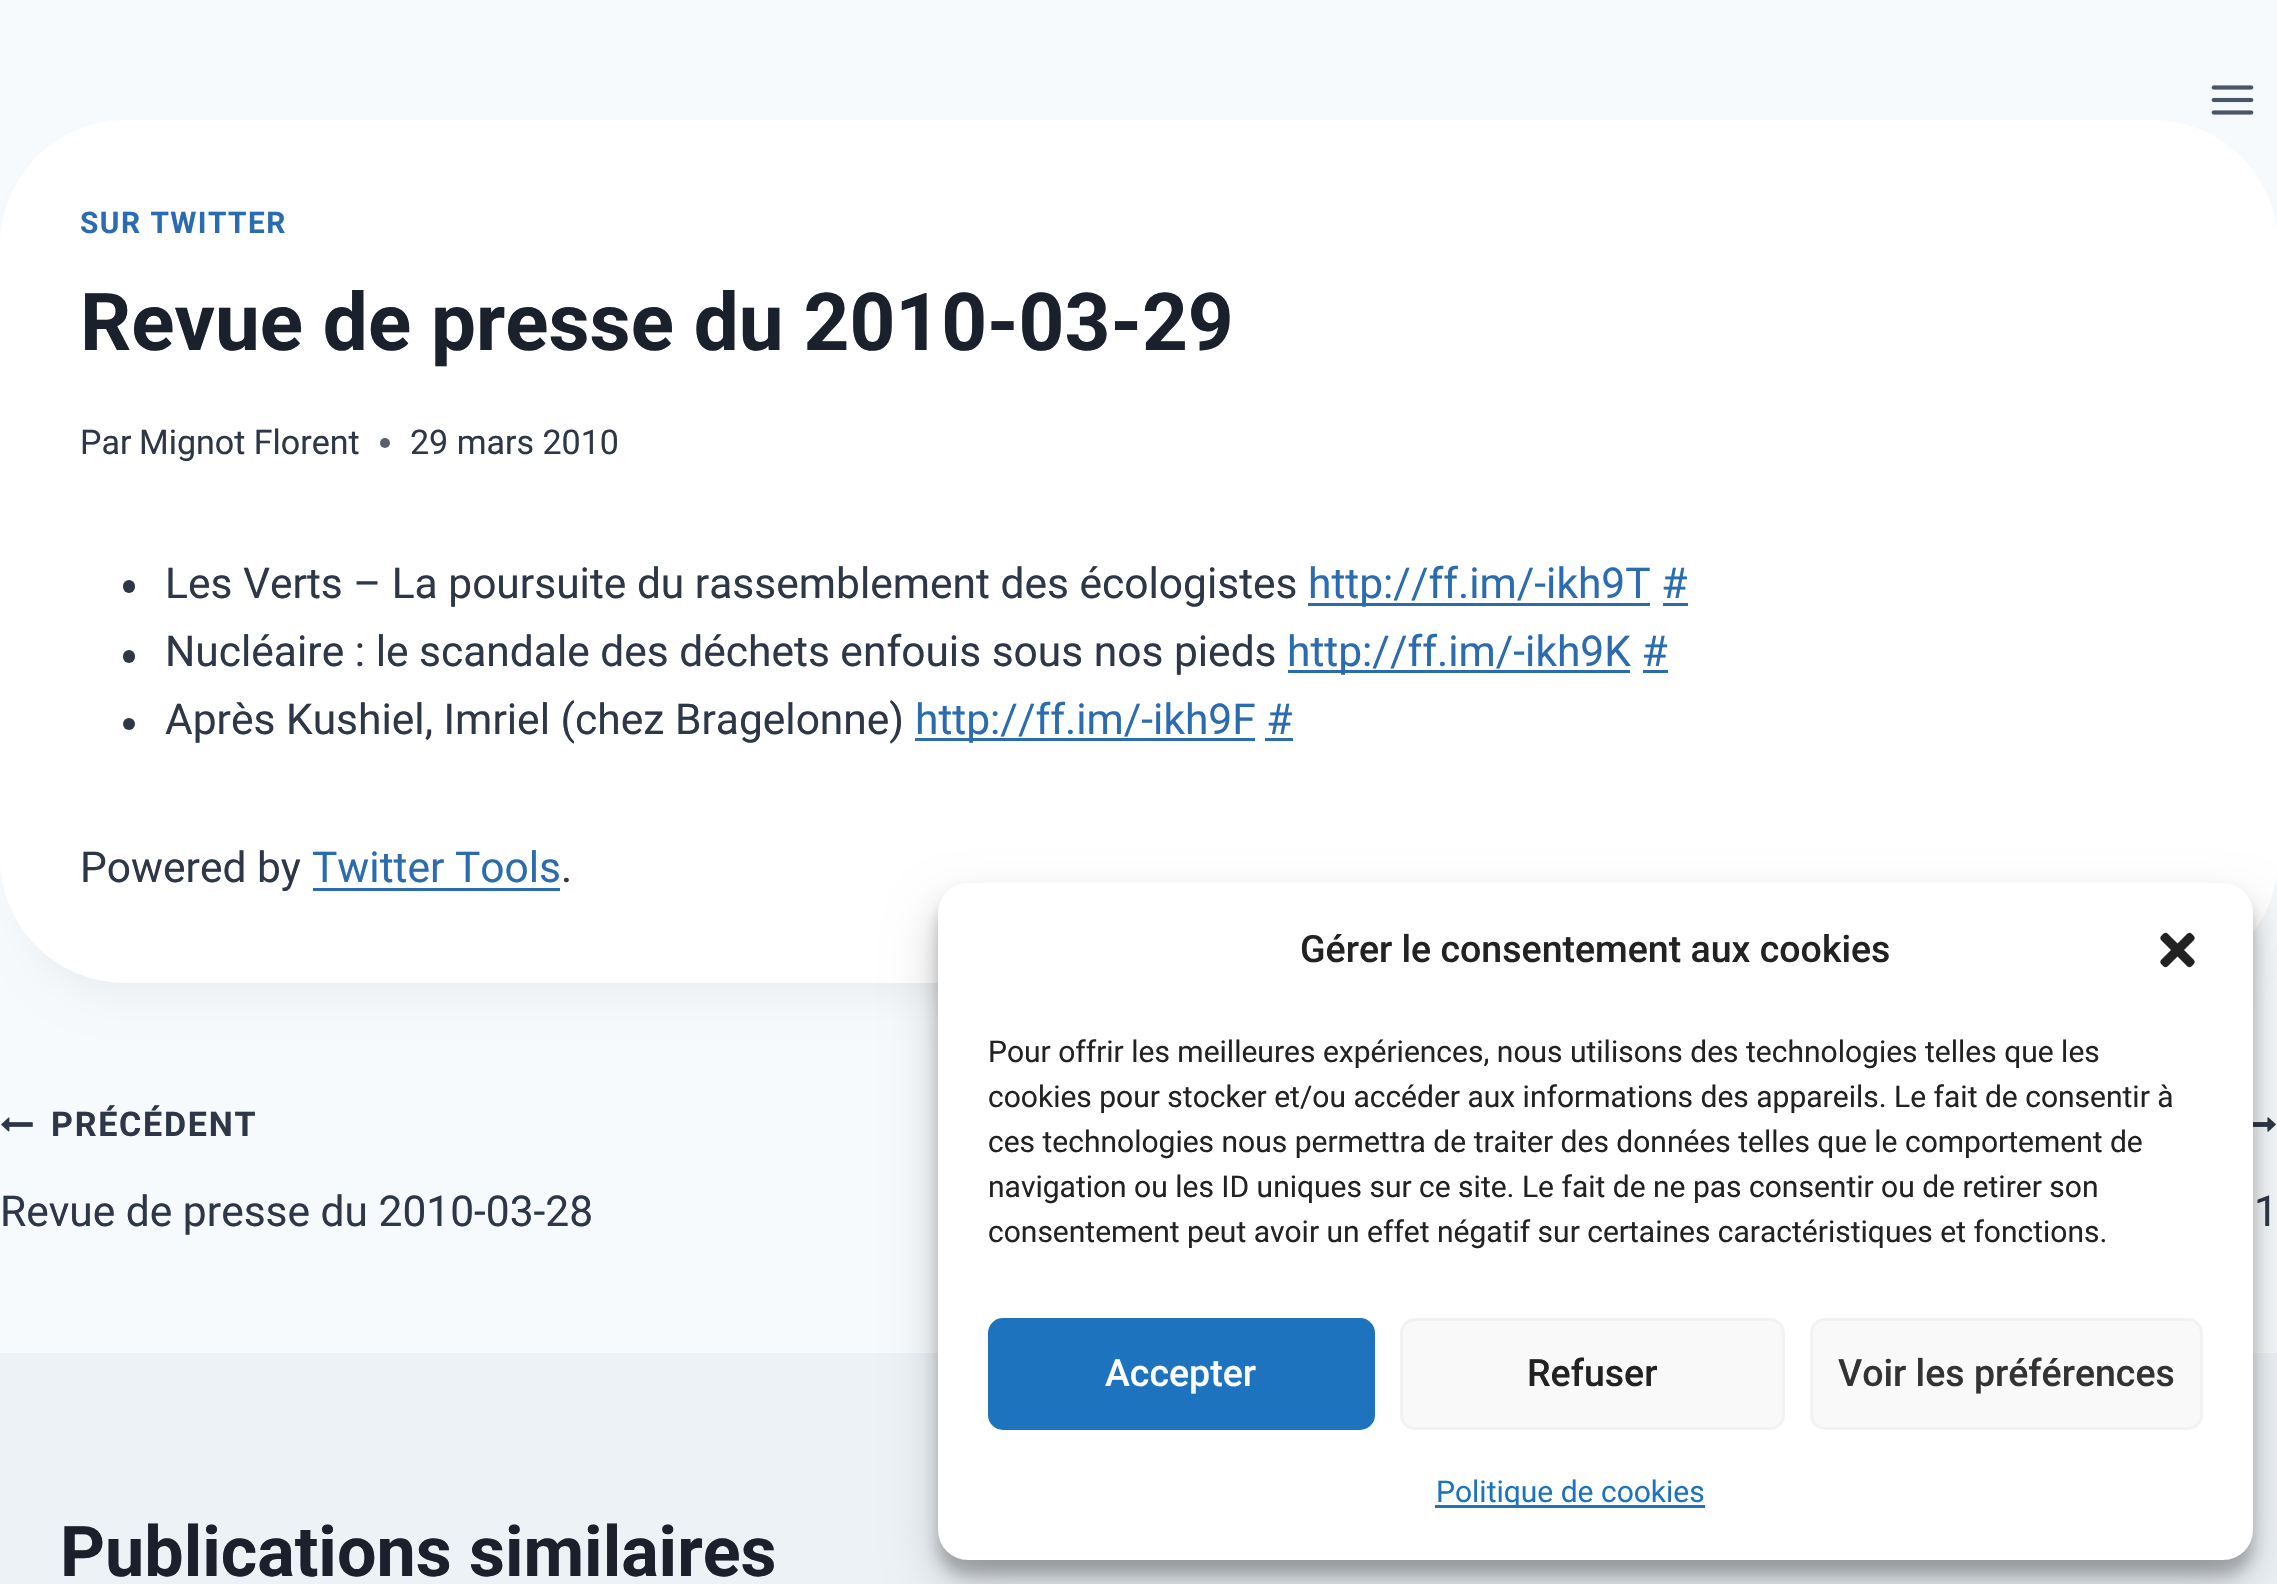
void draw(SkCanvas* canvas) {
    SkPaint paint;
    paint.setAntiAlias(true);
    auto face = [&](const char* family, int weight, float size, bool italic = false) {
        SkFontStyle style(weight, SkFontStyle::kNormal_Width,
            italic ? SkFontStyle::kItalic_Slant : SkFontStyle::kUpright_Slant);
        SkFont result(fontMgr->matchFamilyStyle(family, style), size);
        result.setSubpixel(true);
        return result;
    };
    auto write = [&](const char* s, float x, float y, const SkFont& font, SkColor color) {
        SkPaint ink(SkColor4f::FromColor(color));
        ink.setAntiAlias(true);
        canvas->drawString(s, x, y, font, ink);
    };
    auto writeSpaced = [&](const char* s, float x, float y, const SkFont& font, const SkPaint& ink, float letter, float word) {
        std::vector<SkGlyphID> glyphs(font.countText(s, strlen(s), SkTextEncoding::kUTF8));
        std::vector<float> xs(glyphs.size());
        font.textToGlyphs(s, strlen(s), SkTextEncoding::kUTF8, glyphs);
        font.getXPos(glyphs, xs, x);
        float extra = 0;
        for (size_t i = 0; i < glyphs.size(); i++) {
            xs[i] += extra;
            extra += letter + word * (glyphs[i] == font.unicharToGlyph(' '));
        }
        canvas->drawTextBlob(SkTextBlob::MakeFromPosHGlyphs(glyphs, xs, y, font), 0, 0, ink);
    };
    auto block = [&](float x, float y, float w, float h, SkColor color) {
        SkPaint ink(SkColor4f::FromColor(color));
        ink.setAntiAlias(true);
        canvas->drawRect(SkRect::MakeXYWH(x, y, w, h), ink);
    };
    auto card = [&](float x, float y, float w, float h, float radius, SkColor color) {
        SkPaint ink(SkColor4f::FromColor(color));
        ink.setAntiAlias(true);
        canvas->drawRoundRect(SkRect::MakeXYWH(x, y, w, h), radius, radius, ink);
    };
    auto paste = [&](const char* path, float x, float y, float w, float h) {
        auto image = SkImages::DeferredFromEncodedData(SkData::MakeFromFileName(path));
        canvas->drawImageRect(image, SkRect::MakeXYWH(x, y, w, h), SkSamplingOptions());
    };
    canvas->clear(SkColorSetRGB(247, 250, 252));
    paste("pic1.png", 2211, 85, 43, 30);
    paint.setColor(SkColorSetARGB(13, 0, 0, 0));
    paint.setMaskFilter(SkMaskFilter::MakeBlur(kNormal_SkBlurStyle, 19));
    canvas->drawRoundRect(SkRect::MakeXYWH(25, 183, 2228, 812), 100, 100, paint);
    paint.setMaskFilter(nullptr);
    card(0, 120, 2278, 863, 125, SK_ColorWHITE);
    auto kFont1 = face("Roboto", 700, 29.75f);
    paint.setColor(SkColorSetRGB(43, 108, 176));
    writeSpaced("SUR TWITTER", 80, 233, kFont1, paint, 1.5f, 0);
    auto kFont2 = face("Roboto", 700, 80);
    write("Revue de presse du 2010-03-29", 80, 350, kFont2, SkColorSetRGB(26, 32, 44));
    auto kFont3 = face("Roboto", 400, 34);
    write("Par", 80, 454, kFont3, SkColorSetRGB(45, 55, 72));
    write("Mignot Florent", 139, 454, kFont3, SkColorSetRGB(45, 55, 72));
    paint.setColor(SkColorSetRGB(87, 95, 109));
    canvas->drawCircle(385, 443, 5, paint);
    write("29 mars 2010", 410, 454, kFont3, SkColorSetRGB(45, 55, 72));
    card(123, 580, 12, 13, 6, SkColorSetRGB(45, 55, 72));
    auto kFont4 = face("Roboto", 400, 42.5f);
    write("Les Verts – La poursuite du rassemblement des écologistes", 165, 598, kFont4, SkColorSetRGB(45, 55, 72));
    block(1308, 603, 342, 3, SkColorSetRGB(43, 108, 176));
    write("http://ff.im/-ikh9T #", 1308, 598, kFont4, SkColorSetRGB(43, 108, 176));
    block(1663, 603, 25, 3, SkColorSetRGB(43, 108, 176));
    card(123, 650, 12, 13, 6, SkColorSetRGB(45, 55, 72));
    write("Nucléaire : le scandale des déchets enfouis sous nos pieds", 165, 666, kFont4, SkColorSetRGB(45, 55, 72));
    block(1288, 670, 342, 3, SkColorSetRGB(43, 108, 176));
    write("http://ff.im/-ikh9K #", 1287, 666, kFont4, SkColorSetRGB(43, 108, 176));
    block(1643, 670, 25, 3, SkColorSetRGB(43, 108, 176));
    paint.setColor(SkColorSetRGB(45, 55, 72));
    canvas->drawCircle(129, 724, 6, paint);
    write("Après Kushiel, Imriel (chez Bragelonne)", 165, 734, kFont4, SkColorSetRGB(45, 55, 72));
    block(915, 738, 340, 3, SkColorSetRGB(43, 108, 176));
    write("http://ff.im/-ikh9F #", 915, 734, kFont4, SkColorSetRGB(43, 108, 176));
    block(1265, 738, 28, 3, SkColorSetRGB(43, 108, 176));
    write("Powered by", 80, 882, kFont4, SkColorSetRGB(45, 55, 72));
    write("Twitter Tools", 312, 882, kFont4, SkColorSetRGB(43, 108, 176));
    block(313, 888, 247, 3, SkColorSetRGB(43, 108, 176));
    write(".", 561, 882, kFont4, SkColorSetRGB(45, 55, 72));
    paste("pic2.png", 1, 1117, 32, 15);
    auto kFont5 = face("Roboto", 700, 34);
    writeSpaced("PRÉCÉDENT", 51, 1136, kFont5, paint, 1.75f, 0);
    write("Revue de presse du 2010-03-28", 0, 1226, kFont4, SkColorSetRGB(45, 55, 72));
    paste("pic3.png", 2253, 1117, 23, 15);
    write("1", 2254, 1226, kFont4, SkColorSetRGB(45, 55, 72));
    block(0, 1353, 2277, 231, SkColorSetRGB(237, 242, 247));
    auto kFont6 = face("Roboto", 700, 70);
    write("Publications similaires", 60, 1576, kFont6, SkColorSetRGB(26, 32, 44));
    paint.setColor(SkColorSetARGB(59, 0, 0, 0));
    paint.setMaskFilter(SkMaskFilter::MakeBlur(kNormal_SkBlurStyle, 7.5f));
    canvas->drawRoundRect(SkRect::MakeXYWH(938, 898, 1315, 677), 30, 30, paint);
    paint.setMaskFilter(nullptr);
    paint.setColor(SkColorSetARGB(48, 0, 0, 0));
    paint.setMaskFilter(SkMaskFilter::MakeBlur(kNormal_SkBlurStyle, 25));
    canvas->drawRoundRect(SkRect::MakeXYWH(938, 908, 1315, 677), 30, 30, paint);
    paint.setMaskFilter(nullptr);
    card(938, 883, 1315, 677, 30, SK_ColorWHITE);
    auto kFont7 = face("Roboto", 500, 37.5f);
    write("Gérer le consentement aux cookies", 1300, 962, kFont7, SkColorSetRGB(34, 34, 34));
    paste("pic4.png", 2160, 932, 35, 36);
    auto kFont8 = face("Roboto", 400, 30);
    write("Pour offrir les meilleures expériences, nous utilisons des technologies telles que les", 988, 1062, kFont8, SkColorSetRGB(34, 34, 34));
    write("cookies pour stocker et/ou accéder aux informations des appareils. Le fait de consentir à", 988, 1107, kFont8, SkColorSetRGB(34, 34, 34));
    write("ces technologies nous permettra de traiter des données telles que le comportement de", 988, 1152, kFont8, SkColorSetRGB(34, 34, 34));
    write("navigation ou les ID uniques sur ce site. Le fait de ne pas consentir ou de retirer son", 988, 1197, kFont8, SkColorSetRGB(34, 34, 34));
    write("consentement peut avoir un effet négatif sur certaines caractéristiques et fonctions.", 988, 1242, kFont8, SkColorSetRGB(34, 34, 34));
    paint.setColor(SkColorSetRGB(30, 115, 190));
    canvas->drawRoundRect(SkRect::MakeXYWH(989.5f, 1319.5f, 384, 109), 13.5f, 13.5f, paint);
    paint.setStyle(SkPaint::kStroke_Style);
    paint.setStrokeWidth(3);
    canvas->drawRoundRect(SkRect::MakeXYWH(989.5f, 1319.5f, 384, 109), 13.5f, 13.5f, paint);
    write("Accepter", 1105, 1386, kFont7, SK_ColorWHITE);
    paint.setStyle(SkPaint::kFill_Style);
    paint.setColor(SkColorSetRGB(249, 249, 249));
    canvas->drawRoundRect(SkRect::MakeXYWH(1401.5f, 1319.5f, 382, 109), 13.5f, 13.5f, paint);
    paint.setStyle(SkPaint::kStroke_Style);
    paint.setColor(SkColorSetRGB(242, 242, 242));
    canvas->drawRoundRect(SkRect::MakeXYWH(1401.5f, 1319.5f, 382, 109), 13.5f, 13.5f, paint);
    write("Refuser", 1527, 1386, kFont7, SkColorSetRGB(34, 34, 34));
    paint.setStyle(SkPaint::kFill_Style);
    paint.setColor(SkColorSetRGB(249, 249, 249));
    canvas->drawRoundRect(SkRect::MakeXYWH(1811.5f, 1319.5f, 390, 109), 13.5f, 13.5f, paint);
    paint.setStyle(SkPaint::kStroke_Style);
    paint.setColor(SkColorSetRGB(242, 242, 242));
    canvas->drawRoundRect(SkRect::MakeXYWH(1811.5f, 1319.5f, 390, 109), 13.5f, 13.5f, paint);
    write("Voir les préférences", 1838, 1386, kFont7, SkColorSetRGB(51, 51, 51));
    block(1435, 1505, 270, 3, SkColorSetRGB(30, 115, 190));
    write("Politique de cookies", 1436, 1502, kFont8, SkColorSetRGB(30, 115, 190));
}
